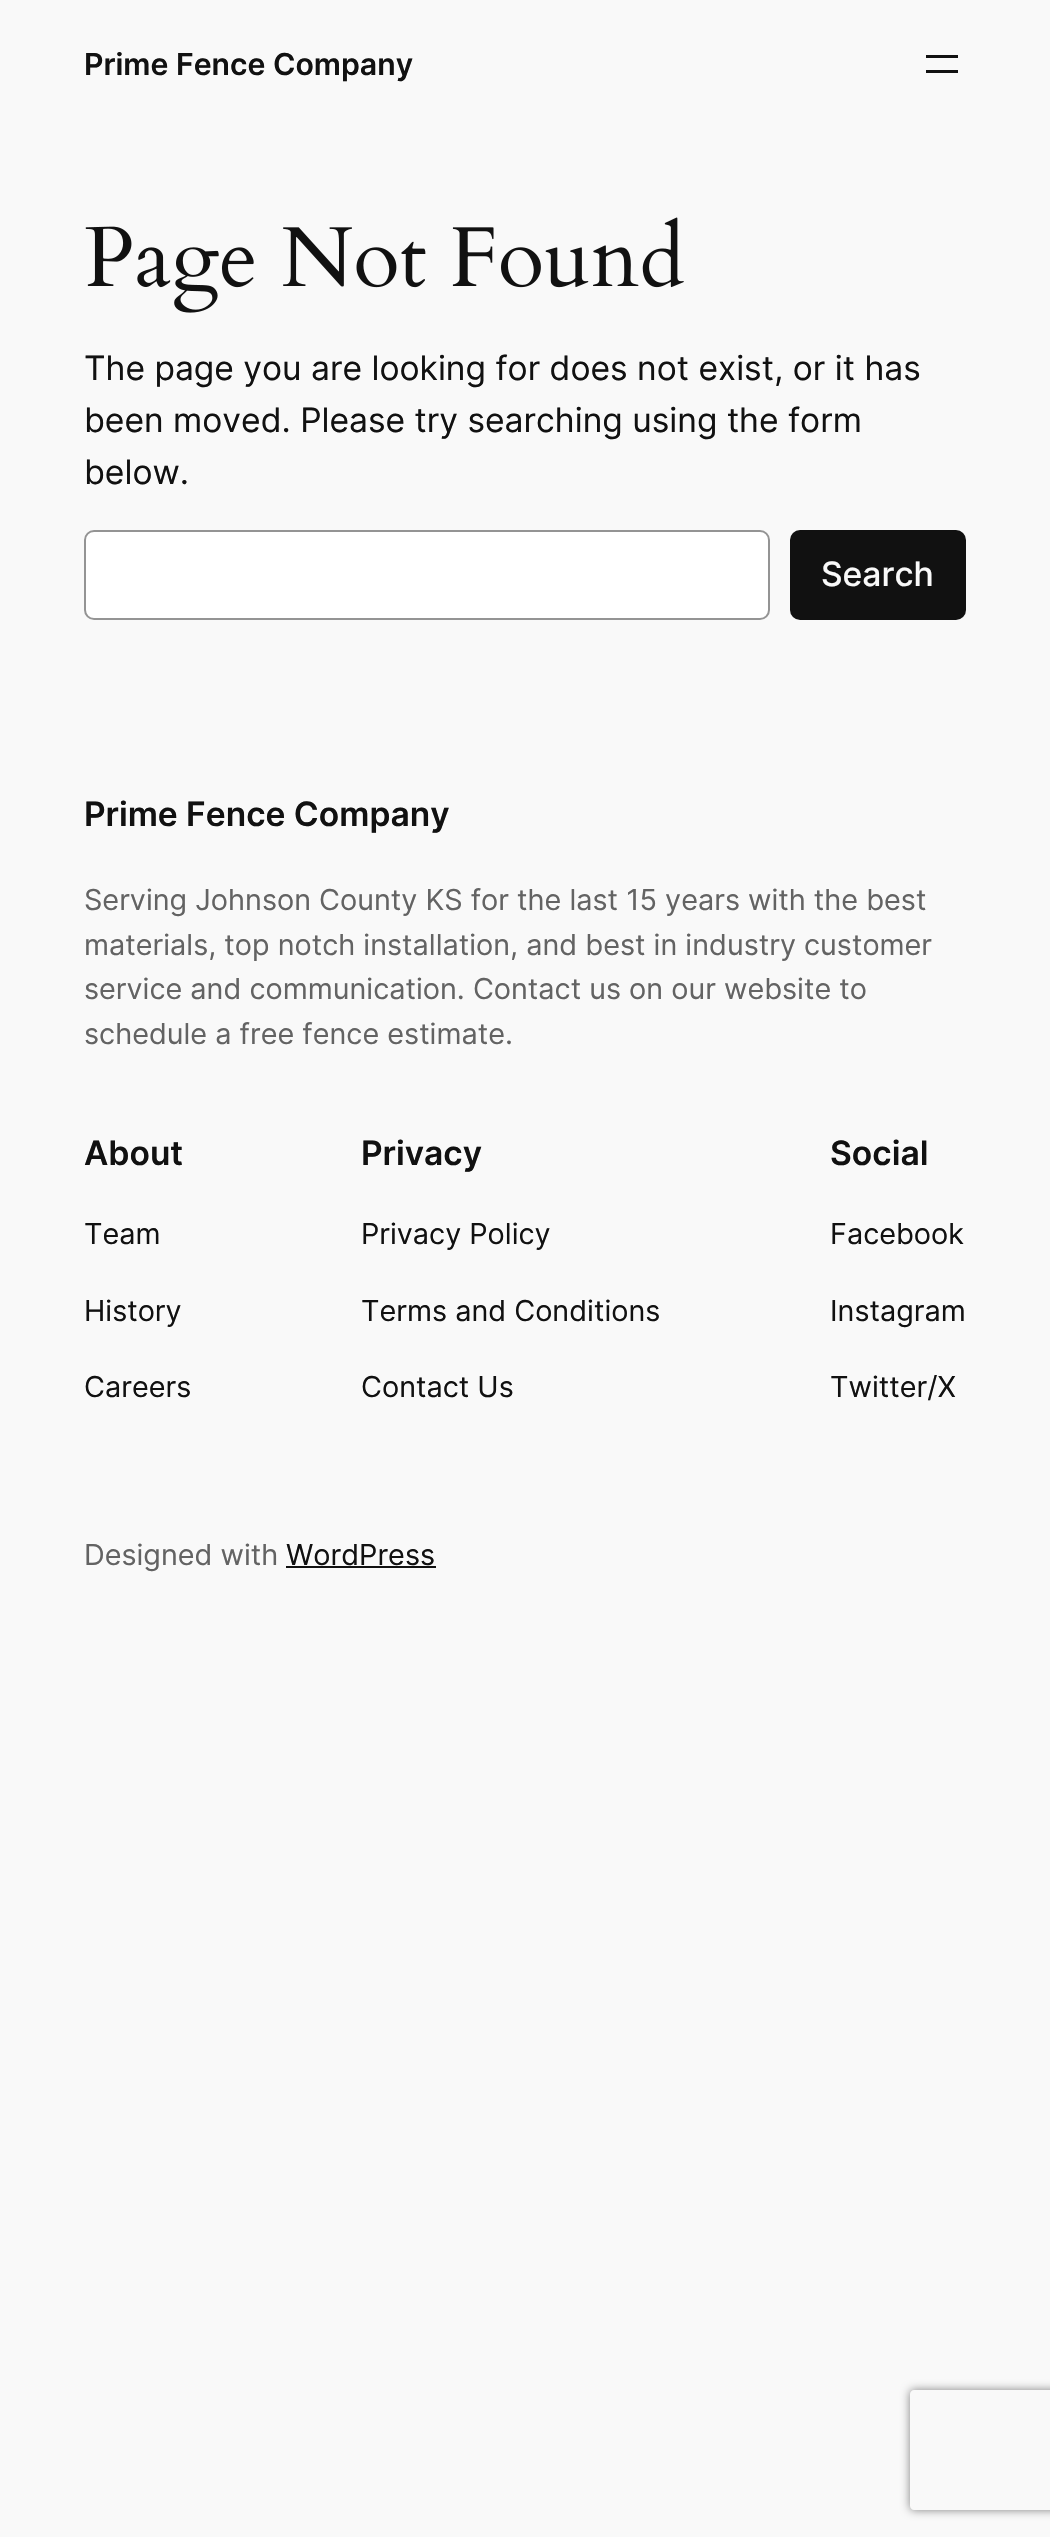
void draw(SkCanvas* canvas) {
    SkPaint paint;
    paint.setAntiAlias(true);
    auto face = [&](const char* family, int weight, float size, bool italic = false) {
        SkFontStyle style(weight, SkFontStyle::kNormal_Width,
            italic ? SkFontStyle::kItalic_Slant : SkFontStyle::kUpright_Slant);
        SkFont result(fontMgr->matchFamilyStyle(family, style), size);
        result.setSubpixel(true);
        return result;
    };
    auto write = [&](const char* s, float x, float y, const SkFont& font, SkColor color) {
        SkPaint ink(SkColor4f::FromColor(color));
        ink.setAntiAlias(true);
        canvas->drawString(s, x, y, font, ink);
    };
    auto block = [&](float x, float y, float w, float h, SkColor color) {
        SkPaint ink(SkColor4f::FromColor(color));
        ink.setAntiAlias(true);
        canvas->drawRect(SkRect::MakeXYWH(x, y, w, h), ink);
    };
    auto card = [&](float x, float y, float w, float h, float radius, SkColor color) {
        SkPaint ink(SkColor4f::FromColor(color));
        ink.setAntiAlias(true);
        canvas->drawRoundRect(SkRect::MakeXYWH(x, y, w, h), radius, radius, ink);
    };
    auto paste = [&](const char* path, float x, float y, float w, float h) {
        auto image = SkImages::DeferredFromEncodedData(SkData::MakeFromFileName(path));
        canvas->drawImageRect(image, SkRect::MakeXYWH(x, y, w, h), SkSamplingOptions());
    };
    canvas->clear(SkColorSetRGB(249, 249, 249));
    auto kFont1 = face("Inter", 600, 30.25f);
    write("Prime Fence Company", 84, 75, kFont1, SkColorSetRGB(17, 17, 17));
    block(926, 55, 32, 3, SkColorSetRGB(17, 17, 17));
    block(926, 70, 32, 3, SkColorSetRGB(17, 17, 17));
    paste("pic1.png", 85, 217, 599, 96);
    auto kFont2 = face("Inter", 400, 33.6f);
    write("The page you are looking for does not exist, or it has", 84, 380, kFont2, SkColorSetRGB(17, 17, 17));
    write("been moved. Please try searching using the form", 84, 432, kFont2, SkColorSetRGB(17, 17, 17));
    write("below.", 84, 484, kFont2, SkColorSetRGB(17, 17, 17));
    paint.setColor(SK_ColorWHITE);
    canvas->drawRoundRect(SkRect::MakeXYWH(85, 531, 684, 88), 9, 9, paint);
    paint.setStyle(SkPaint::kStroke_Style);
    paint.setStrokeWidth(2);
    paint.setColor(SkColorSetRGB(148, 148, 148));
    canvas->drawRoundRect(SkRect::MakeXYWH(85, 531, 684, 88), 9, 9, paint);
    card(790, 530, 176, 90, 10, SkColorSetRGB(17, 17, 17));
    auto kFont3 = face("Inter", 500, 33.6f);
    write("Search", 821, 586, kFont3, SkColorSetRGB(249, 249, 249));
    auto kFont4 = face("Inter", 600, 33.6f);
    write("Prime Fence Company", 84, 826, kFont4, SkColorSetRGB(17, 17, 17));
    auto kFont5 = face("Inter", 400, 28.8f);
    write("Serving Johnson County KS for the last 15 years with the best", 84, 910, kFont5, SkColorSetRGB(99, 99, 99));
    write("materials, top notch installation, and best in industry customer", 84, 955, kFont5, SkColorSetRGB(99, 99, 99));
    write("service and communication. Contact us on our website to", 84, 999, kFont5, SkColorSetRGB(99, 99, 99));
    write("schedule a free fence estimate.", 84, 1044, kFont5, SkColorSetRGB(99, 99, 99));
    write("About", 84, 1165, kFont4, SkColorSetRGB(17, 17, 17));
    write("Team", 84, 1244, kFont5, SkColorSetRGB(17, 17, 17));
    write("History", 84, 1321, kFont5, SkColorSetRGB(17, 17, 17));
    write("Careers", 84, 1397, kFont5, SkColorSetRGB(17, 17, 17));
    write("Privacy", 361, 1165, kFont4, SkColorSetRGB(17, 17, 17));
    write("Privacy Policy", 361, 1244, kFont5, SkColorSetRGB(17, 17, 17));
    write("Terms and Conditions", 361, 1321, kFont5, SkColorSetRGB(17, 17, 17));
    write("Contact Us", 361, 1397, kFont5, SkColorSetRGB(17, 17, 17));
    write("Social", 830, 1165, kFont4, SkColorSetRGB(17, 17, 17));
    write("Facebook", 830, 1244, kFont5, SkColorSetRGB(17, 17, 17));
    write("Instagram", 830, 1321, kFont5, SkColorSetRGB(17, 17, 17));
    write("Twitter/X", 830, 1397, kFont5, SkColorSetRGB(17, 17, 17));
    write("Designed with", 84, 1565, kFont5, SkColorSetRGB(99, 99, 99));
    write("WordPress", 286, 1565, kFont5, SkColorSetRGB(17, 17, 17));
    block(286, 1566, 150, 2, SkColorSetRGB(17, 17, 17));
    canvas->save();
    canvas->clipPath(SkPathBuilder(SkPathFillType::kEvenOdd).moveTo(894, 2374).lineTo(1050, 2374).lineTo(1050, 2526).lineTo(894, 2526).close().moveTo(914, 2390).lineTo(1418, 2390).cubicTo(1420, 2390, 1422, 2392, 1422, 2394).lineTo(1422, 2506).cubicTo(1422, 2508, 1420, 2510, 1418, 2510).lineTo(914, 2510).cubicTo(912, 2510, 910, 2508, 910, 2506).lineTo(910, 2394).cubicTo(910, 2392, 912, 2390, 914, 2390).close().detach(), true);
    paint.setStyle(SkPaint::kFill_Style);
    paint.setColor(SkColorSetRGB(128, 128, 128));
    paint.setMaskFilter(SkMaskFilter::MakeBlur(kNormal_SkBlurStyle, 5));
    canvas->drawRoundRect(SkRect::MakeXYWH(910, 2390, 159, 120), 4, 4, paint);
    paint.setMaskFilter(nullptr);
    canvas->restore();
}
